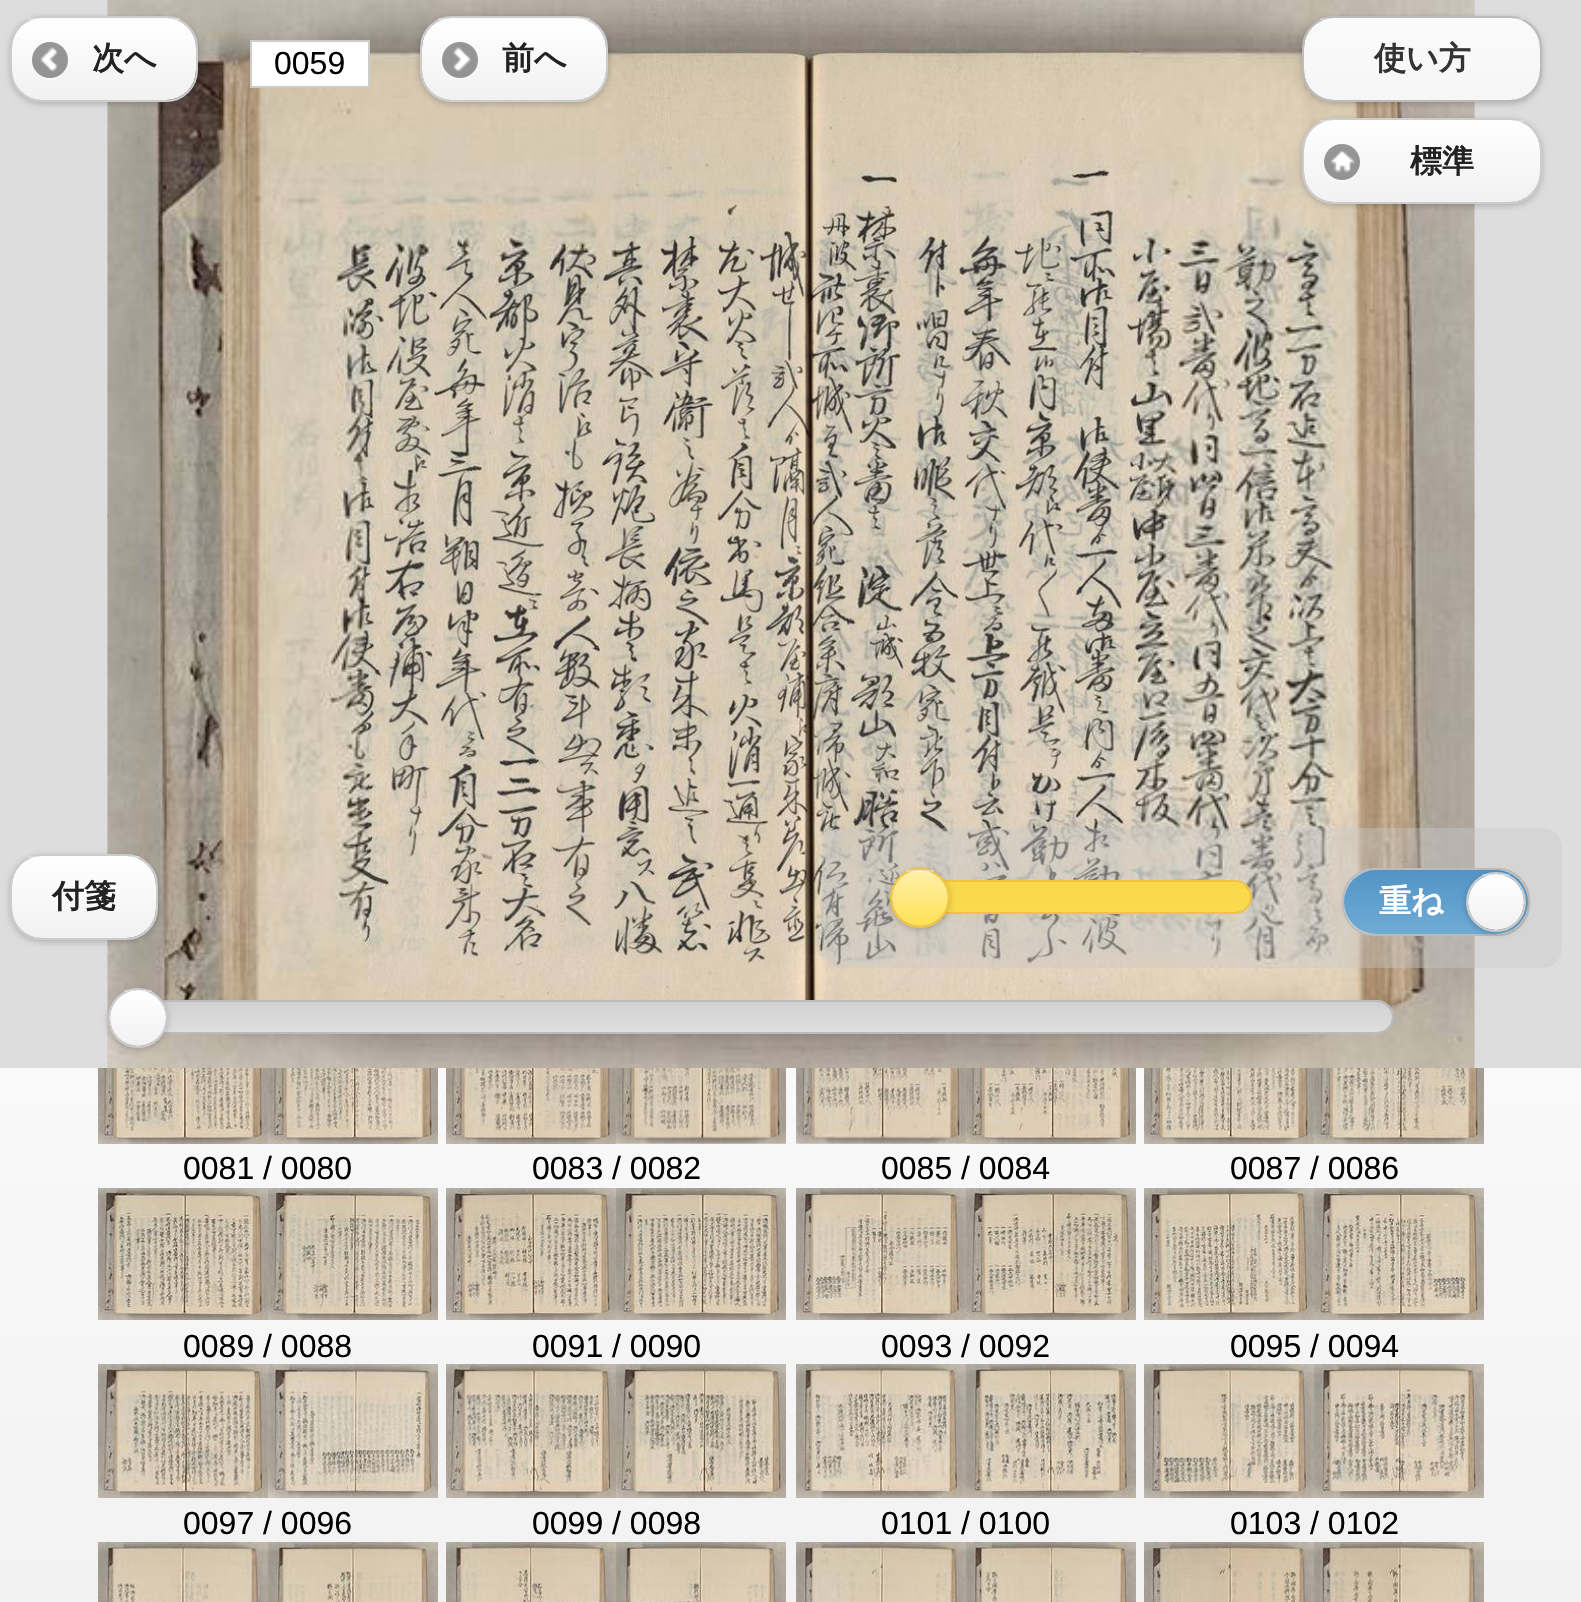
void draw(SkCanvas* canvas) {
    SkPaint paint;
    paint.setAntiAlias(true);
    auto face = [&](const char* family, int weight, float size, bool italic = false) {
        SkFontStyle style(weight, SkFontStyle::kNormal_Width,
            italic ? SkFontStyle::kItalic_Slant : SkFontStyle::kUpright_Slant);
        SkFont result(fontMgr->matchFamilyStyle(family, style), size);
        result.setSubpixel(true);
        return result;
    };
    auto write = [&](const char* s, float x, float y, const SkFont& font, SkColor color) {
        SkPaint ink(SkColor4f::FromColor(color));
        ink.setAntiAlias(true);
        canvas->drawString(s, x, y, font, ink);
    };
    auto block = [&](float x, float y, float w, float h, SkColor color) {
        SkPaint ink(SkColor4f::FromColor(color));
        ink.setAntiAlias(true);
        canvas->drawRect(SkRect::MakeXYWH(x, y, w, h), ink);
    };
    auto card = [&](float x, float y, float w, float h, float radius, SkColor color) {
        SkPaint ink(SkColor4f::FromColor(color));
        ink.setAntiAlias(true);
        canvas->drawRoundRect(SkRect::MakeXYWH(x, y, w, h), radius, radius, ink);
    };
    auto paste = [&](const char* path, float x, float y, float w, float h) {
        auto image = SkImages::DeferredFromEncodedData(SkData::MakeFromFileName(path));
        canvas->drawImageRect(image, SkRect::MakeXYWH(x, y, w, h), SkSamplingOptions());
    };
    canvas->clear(SkColorSetRGB(221, 221, 221));
    paste("pic21.png", 1143, 1031, 332, 37);
    paste("pic12.png", 1142, 514, 333, 522);
    paste("pic7.png", 1142, 0, 333, 519);
    paint.setColor(SkColorSetARGB(51, 0, 0, 0));
    paint.setMaskFilter(SkMaskFilter::MakeBlur(kNormal_SkBlurStyle, 3));
    canvas->drawRoundRect(SkRect::MakeXYWH(1302, 18, 240, 86), 32, 32, paint);
    paint.setMaskFilter(nullptr);
    {
        const SkColor colors[] = {SkColorSetRGB(250, 250, 250), SkColorSetRGB(246, 246, 246)};
        const float stops[] = {0, 1};
        const SkPoint ends[] = {{1422, 18}, {1422, 100}};
        paint.setShader(SkGradientShader::MakeLinear(ends, colors, stops, 2, SkTileMode::kClamp));
        paint.setAlpha(255);
    }
    canvas->drawRoundRect(SkRect::MakeXYWH(1304, 18, 236, 82), 30, 30, paint);
    paint.setStyle(SkPaint::kStroke_Style);
    paint.setStrokeWidth(2);
    paint.setShader(nullptr);
    paint.setColor(SkColorSetRGB(187, 187, 187));
    canvas->drawRoundRect(SkRect::MakeXYWH(1303, 17, 238, 84), 31, 31, paint);
    block(1320, 18, 204, 2, SkColorSetARGB(77, 255, 255, 255));
    auto kFont1 = face("WenQuanYi Zen Hei", 700, 32);
    write("使い方", 1374, 69, kFont1, SkColorSetRGB(51, 51, 51));
    paint.setStyle(SkPaint::kFill_Style);
    paint.setColor(SkColorSetARGB(51, 0, 0, 0));
    paint.setMaskFilter(SkMaskFilter::MakeBlur(kNormal_SkBlurStyle, 3));
    canvas->drawRoundRect(SkRect::MakeXYWH(1302, 120, 240, 86), 32, 32, paint);
    paint.setMaskFilter(nullptr);
    {
        const SkColor colors[] = {SK_ColorWHITE, SkColorSetRGB(241, 241, 241)};
        const float stops[] = {0, 1};
        const SkPoint ends[] = {{1422, 120}, {1422, 202}};
        paint.setShader(SkGradientShader::MakeLinear(ends, colors, stops, 2, SkTileMode::kClamp));
        paint.setAlpha(255);
    }
    canvas->drawRoundRect(SkRect::MakeXYWH(1304, 120, 236, 82), 30, 30, paint);
    paint.setStyle(SkPaint::kStroke_Style);
    paint.setShader(nullptr);
    paint.setColor(SkColorSetRGB(204, 204, 204));
    canvas->drawRoundRect(SkRect::MakeXYWH(1303, 119, 238, 84), 31, 31, paint);
    block(1320, 120, 204, 2, SkColorSetARGB(77, 255, 255, 255));
    paint.setStyle(SkPaint::kFill_Style);
    paint.setColor(SkColorSetRGB(249, 249, 249));
    canvas->drawPath(SkPathBuilder().moveTo(1360, 163).cubicTo(1358.5f, 185.5f, 1325.5f, 185.5f, 1324, 163).cubicTo(1323, 181, 1347, 189, 1357, 174).cubicTo(1359, 171, 1360, 167, 1360, 163).close().detach(), paint);
    paint.setColor(SkColorSetARGB(102, 0, 0, 0));
    canvas->drawCircle(1342, 162, 18, paint);
    paste("pic1.png", 1330, 151, 25, 22);
    write("標準", 1410, 172, kFont1, SkColorSetRGB(34, 34, 34));
    paste("pic20.png", 626, 1034, 517, 34);
    paste("pic19.png", 107, 1031, 520, 37);
    paste("pic11.png", 107, 514, 520, 522);
    paint.setColor(SkColorSetARGB(51, 0, 0, 0));
    paint.setMaskFilter(SkMaskFilter::MakeBlur(kNormal_SkBlurStyle, 3));
    canvas->drawRoundRect(SkRect::MakeXYWH(10, 856, 148, 86), 32, 32, paint);
    paint.setMaskFilter(nullptr);
    {
        const SkColor colors[] = {SK_ColorWHITE, SkColorSetRGB(241, 241, 241)};
        const float stops[] = {0, 1};
        const SkPoint ends[] = {{84, 856}, {84, 938}};
        paint.setShader(SkGradientShader::MakeLinear(ends, colors, stops, 2, SkTileMode::kClamp));
        paint.setAlpha(255);
    }
    canvas->drawRoundRect(SkRect::MakeXYWH(12, 856, 144, 82), 30, 30, paint);
    paint.setStyle(SkPaint::kStroke_Style);
    paint.setShader(nullptr);
    paint.setColor(SkColorSetRGB(204, 204, 204));
    canvas->drawRoundRect(SkRect::MakeXYWH(11, 855, 146, 84), 31, 31, paint);
    block(28, 856, 112, 2, SkColorSetARGB(77, 255, 255, 255));
    write("付箋", 52, 907, kFont1, SkColorSetRGB(34, 34, 34));
    paste("pic18.png", 881, 774, 262, 261);
    paste("pic15.png", 883, 515, 260, 262);
    paste("pic10.png", 883, 257, 260, 261);
    paste("pic17.png", 623, 774, 261, 261);
    paste("pic14.png", 625, 515, 259, 262);
    paste("pic16.png", 364, 774, 262, 261);
    paint.setStyle(SkPaint::kFill_Style);
    {
        const SkColor colors[] = {SkColorSetRGB(208, 208, 208), SkColorSetRGB(223, 223, 223)};
        const float stops[] = {0, 1};
        const SkPoint ends[] = {{765, 1002}, {765, 1032}};
        paint.setShader(SkGradientShader::MakeLinear(ends, colors, stops, 2, SkTileMode::kClamp));
        paint.setAlpha(255);
    }
    canvas->drawRoundRect(SkRect::MakeXYWH(138, 1002, 1254, 30), 15, 15, paint);
    paint.setStyle(SkPaint::kStroke_Style);
    paint.setShader(nullptr);
    paint.setColor(SkColorSetRGB(187, 187, 187));
    canvas->drawRoundRect(SkRect::MakeXYWH(137, 1001, 1256, 32), 16, 16, paint);
    paint.setStyle(SkPaint::kFill_Style);
    paint.setColor(SkColorSetARGB(51, 0, 0, 0));
    paint.setMaskFilter(SkMaskFilter::MakeBlur(kNormal_SkBlurStyle, 3));
    canvas->drawRoundRect(SkRect::MakeXYWH(108, 990, 60, 60), 30, 30, paint);
    paint.setMaskFilter(nullptr);
    {
        const SkColor colors[] = {SK_ColorWHITE, SkColorSetRGB(241, 241, 241)};
        const float stops[] = {0, 1};
        const SkPoint ends[] = {{138, 990}, {138, 1046}};
        paint.setShader(SkGradientShader::MakeLinear(ends, colors, stops, 2, SkTileMode::kClamp));
        paint.setAlpha(255);
    }
    canvas->drawCircle(138, 1018, 28, paint);
    paint.setStyle(SkPaint::kStroke_Style);
    paint.setShader(nullptr);
    paint.setColor(SkColorSetRGB(204, 204, 204));
    canvas->drawCircle(138, 1018, 29, paint);
    block(124, 990, 28, 2, SkColorSetARGB(77, 255, 255, 255));
    paste("pic4.png", 107, 0, 517, 519);
    paint.setStyle(SkPaint::kFill_Style);
    paint.setColor(SkColorSetARGB(51, 0, 0, 0));
    paint.setMaskFilter(SkMaskFilter::MakeBlur(kNormal_SkBlurStyle, 3));
    canvas->drawRoundRect(SkRect::MakeXYWH(10, 18, 188, 86), 32, 32, paint);
    paint.setMaskFilter(nullptr);
    {
        const SkColor colors[] = {SK_ColorWHITE, SkColorSetRGB(241, 241, 241)};
        const float stops[] = {0, 1};
        const SkPoint ends[] = {{104, 18}, {104, 100}};
        paint.setShader(SkGradientShader::MakeLinear(ends, colors, stops, 2, SkTileMode::kClamp));
        paint.setAlpha(255);
    }
    canvas->drawRoundRect(SkRect::MakeXYWH(12, 18, 184, 82), 30, 30, paint);
    paint.setStyle(SkPaint::kStroke_Style);
    paint.setShader(nullptr);
    paint.setColor(SkColorSetRGB(204, 204, 204));
    canvas->drawRoundRect(SkRect::MakeXYWH(11, 17, 186, 84), 31, 31, paint);
    block(28, 18, 152, 2, SkColorSetARGB(77, 255, 255, 255));
    paint.setStyle(SkPaint::kFill_Style);
    paint.setColor(SkColorSetRGB(249, 249, 249));
    canvas->drawPath(SkPathBuilder().moveTo(32, 61).cubicTo(31, 79, 55, 87, 65, 72).cubicTo(67, 69, 68, 65, 68, 61).cubicTo(66.5f, 83.5f, 33.5f, 83.5f, 32, 61).close().detach(), paint);
    paint.setColor(SkColorSetARGB(102, 0, 0, 0));
    canvas->drawCircle(50, 60, 18, paint);
    paste("pic2.png", 40, 47, 18, 25);
    write("次へ", 92, 69, kFont1, SkColorSetRGB(34, 34, 34));
    paint.setColor(SK_ColorWHITE);
    canvas->drawRect(SkRect::MakeXYWH(251, 41, 118, 46), paint);
    paint.setStyle(SkPaint::kStroke_Style);
    paint.setColor(SkColorSetRGB(204, 204, 204));
    canvas->drawRect(SkRect::MakeXYWH(251, 41, 118, 46), paint);
    auto kFont2 = face("Liberation Sans", 400, 32);
    write("0059", 274, 74, kFont2, SK_ColorBLACK);
    paint.setStyle(SkPaint::kFill_Style);
    paint.setColor(SkColorSetARGB(51, 0, 0, 0));
    paint.setMaskFilter(SkMaskFilter::MakeBlur(kNormal_SkBlurStyle, 3));
    canvas->drawRoundRect(SkRect::MakeXYWH(420, 18, 188, 86), 32, 32, paint);
    paint.setMaskFilter(nullptr);
    {
        const SkColor colors[] = {SK_ColorWHITE, SkColorSetRGB(241, 241, 241)};
        const float stops[] = {0, 1};
        const SkPoint ends[] = {{514, 18}, {514, 100}};
        paint.setShader(SkGradientShader::MakeLinear(ends, colors, stops, 2, SkTileMode::kClamp));
        paint.setAlpha(255);
    }
    canvas->drawRoundRect(SkRect::MakeXYWH(422, 18, 184, 82), 30, 30, paint);
    paint.setStyle(SkPaint::kStroke_Style);
    paint.setShader(nullptr);
    paint.setColor(SkColorSetRGB(204, 204, 204));
    canvas->drawRoundRect(SkRect::MakeXYWH(421, 17, 186, 84), 31, 31, paint);
    block(438, 18, 152, 2, SkColorSetARGB(77, 255, 255, 255));
    paint.setStyle(SkPaint::kFill_Style);
    paint.setColor(SkColorSetRGB(249, 249, 249));
    canvas->drawPath(SkPathBuilder().moveTo(478, 61).cubicTo(476.5f, 83.5f, 443.5f, 83.5f, 442, 61).cubicTo(441, 79, 465, 87, 475, 72).cubicTo(477, 69, 478, 65, 478, 61).close().detach(), paint);
    paint.setColor(SkColorSetARGB(102, 0, 0, 0));
    canvas->drawCircle(460, 60, 18, paint);
    paste("pic3.png", 453, 47, 18, 25);
    write("前へ", 502, 69, kFont1, SkColorSetRGB(34, 34, 34));
    card(822, 828, 740, 140, 20, SkColorSetARGB(102, 200, 200, 200));
    {
        const SkColor colors[] = {SkColorSetRGB(248, 217, 76), SkColorSetRGB(250, 219, 78)};
        const float stops[] = {0, 1};
        const SkPoint ends[] = {{1085, 882}, {1085, 912}};
        paint.setShader(SkGradientShader::MakeLinear(ends, colors, stops, 2, SkTileMode::kClamp));
        paint.setAlpha(255);
    }
    canvas->drawRoundRect(SkRect::MakeXYWH(920, 882, 330, 30), 15, 15, paint);
    paint.setStyle(SkPaint::kStroke_Style);
    paint.setShader(nullptr);
    paint.setColor(SkColorSetRGB(242, 196, 61));
    canvas->drawRoundRect(SkRect::MakeXYWH(919, 881, 332, 32), 16, 16, paint);
    paint.setStyle(SkPaint::kFill_Style);
    paint.setColor(SkColorSetARGB(51, 0, 0, 0));
    paint.setMaskFilter(SkMaskFilter::MakeBlur(kNormal_SkBlurStyle, 3));
    canvas->drawRoundRect(SkRect::MakeXYWH(890, 870, 60, 60), 30, 30, paint);
    paint.setMaskFilter(nullptr);
    {
        const SkColor colors[] = {SkColorSetRGB(255, 239, 170), SkColorSetRGB(255, 225, 85)};
        const float stops[] = {0, 1};
        const SkPoint ends[] = {{920, 870}, {920, 926}};
        paint.setShader(SkGradientShader::MakeLinear(ends, colors, stops, 2, SkTileMode::kClamp));
        paint.setAlpha(255);
    }
    canvas->drawCircle(920, 898, 28, paint);
    paint.setStyle(SkPaint::kStroke_Style);
    paint.setShader(nullptr);
    paint.setColor(SkColorSetRGB(244, 198, 63));
    canvas->drawCircle(920, 898, 29, paint);
    block(906, 870, 28, 2, SkColorSetARGB(77, 255, 255, 255));
    paint.setStyle(SkPaint::kFill_Style);
    {
        const SkColor colors[] = {SkColorSetRGB(208, 208, 208), SkColorSetRGB(223, 223, 223)};
        const float stops[] = {0, 1};
        const SkPoint ends[] = {{1436, 870}, {1436, 934}};
        paint.setShader(SkGradientShader::MakeLinear(ends, colors, stops, 2, SkTileMode::kClamp));
        paint.setAlpha(255);
    }
    canvas->drawRoundRect(SkRect::MakeXYWH(1344, 870, 184, 64), 30, 30, paint);
    paint.setStyle(SkPaint::kStroke_Style);
    paint.setShader(nullptr);
    paint.setColor(SkColorSetRGB(187, 187, 187));
    canvas->drawRoundRect(SkRect::MakeXYWH(1343, 869, 186, 66), 31, 31, paint);
    paint.setStyle(SkPaint::kFill_Style);
    {
        const SkColor colors[] = {SkColorSetRGB(83, 147, 197), SkColorSetRGB(111, 172, 213)};
        const float stops[] = {0, 1};
        const SkPoint ends[] = {{1436, 870}, {1436, 934}};
        paint.setShader(SkGradientShader::MakeLinear(ends, colors, stops, 2, SkTileMode::kClamp));
        paint.setAlpha(255);
    }
    canvas->drawRoundRect(SkRect::MakeXYWH(1344, 870, 184, 64), 32, 32, paint);
    write("重ね", 1379, 912, kFont1, SK_ColorWHITE);
    paint.setShader(nullptr);
    paint.setColor(SkColorSetARGB(51, 0, 0, 0));
    paint.setMaskFilter(SkMaskFilter::MakeBlur(kNormal_SkBlurStyle, 3));
    canvas->drawRoundRect(SkRect::MakeXYWH(1466, 874, 60, 60), 30, 30, paint);
    paint.setMaskFilter(nullptr);
    {
        const SkColor colors[] = {SK_ColorWHITE, SkColorSetRGB(241, 241, 241)};
        const float stops[] = {0, 1};
        const SkPoint ends[] = {{1496, 874}, {1496, 930}};
        paint.setShader(SkGradientShader::MakeLinear(ends, colors, stops, 2, SkTileMode::kClamp));
        paint.setAlpha(255);
    }
    canvas->drawCircle(1496, 902, 28, paint);
    paint.setStyle(SkPaint::kStroke_Style);
    paint.setShader(nullptr);
    paint.setColor(SkColorSetRGB(204, 204, 204));
    canvas->drawCircle(1496, 902, 29, paint);
    block(1482, 874, 28, 2, SkColorSetARGB(77, 255, 255, 255));
    paste("pic6.png", 883, 0, 260, 260);
    paste("pic9.png", 623, 257, 261, 261);
    paste("pic5.png", 623, 0, 261, 260);
    paste("pic13.png", 364, 515, 262, 262);
    paste("pic8.png", 364, 257, 262, 261);
    paint.setStyle(SkPaint::kFill_Style);
    {
        const SkColor colors[] = {SkColorSetRGB(249, 249, 249), SkColorSetRGB(238, 238, 238)};
        const float stops[] = {0, 1};
        const SkPoint ends[] = {{791, 1068}, {791, 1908}};
        paint.setShader(SkGradientShader::MakeLinear(ends, colors, stops, 2, SkTileMode::kClamp));
        paint.setAlpha(255);
    }
    canvas->drawRect(SkRect::MakeXYWH(0, 1068, 1581, 534), paint);
    paste("pic22.png", 98, 1068, 170, 76);
    paste("pic23.png", 268, 1068, 170, 76);
    write("0081 / 0080", 183, 1179, kFont2, SK_ColorBLACK);
    paste("pic24.png", 446, 1068, 170, 76);
    paste("pic25.png", 616, 1068, 171, 76);
    write("0083 / 0082", 532, 1179, kFont2, SK_ColorBLACK);
    paste("pic26.png", 796, 1068, 170, 76);
    paste("pic27.png", 966, 1068, 170, 76);
    write("0085 / 0084", 881, 1179, kFont2, SK_ColorBLACK);
    paste("pic28.png", 1144, 1068, 170, 76);
    paste("pic29.png", 1314, 1068, 170, 76);
    write("0087 / 0086", 1230, 1179, kFont2, SK_ColorBLACK);
    paste("pic30.png", 98, 1188, 170, 132);
    paste("pic31.png", 268, 1188, 170, 132);
    write("0089 / 0088", 183, 1357, kFont2, SK_ColorBLACK);
    paste("pic32.png", 446, 1188, 170, 132);
    paste("pic33.png", 616, 1188, 170, 132);
    write("0091 / 0090", 532, 1357, kFont2, SK_ColorBLACK);
    paste("pic34.png", 796, 1188, 170, 132);
    paste("pic35.png", 966, 1188, 170, 132);
    write("0093 / 0092", 881, 1357, kFont2, SK_ColorBLACK);
    paste("pic36.png", 1144, 1188, 170, 132);
    paste("pic37.png", 1314, 1188, 170, 132);
    write("0095 / 0094", 1230, 1357, kFont2, SK_ColorBLACK);
    paste("pic38.png", 98, 1364, 170, 134);
    paste("pic39.png", 268, 1364, 170, 134);
    write("0097 / 0096", 183, 1534, kFont2, SK_ColorBLACK);
    paste("pic40.png", 446, 1364, 170, 134);
    paste("pic41.png", 616, 1364, 170, 134);
    write("0099 / 0098", 532, 1534, kFont2, SK_ColorBLACK);
    paste("pic42.png", 796, 1364, 170, 134);
    paste("pic43.png", 966, 1364, 170, 134);
    write("0101 / 0100", 881, 1534, kFont2, SK_ColorBLACK);
    paste("pic44.png", 1144, 1364, 170, 134);
    paste("pic45.png", 1314, 1364, 170, 134);
    write("0103 / 0102", 1230, 1534, kFont2, SK_ColorBLACK);
    paste("pic46.png", 98, 1542, 170, 60);
    paste("pic47.png", 268, 1542, 170, 60);
    paste("pic48.png", 446, 1542, 170, 60);
    paste("pic49.png", 616, 1542, 170, 60);
    paste("pic50.png", 796, 1542, 170, 60);
    paste("pic51.png", 966, 1542, 170, 60);
    paste("pic52.png", 1144, 1542, 170, 60);
    paste("pic53.png", 1314, 1542, 170, 60);
}
